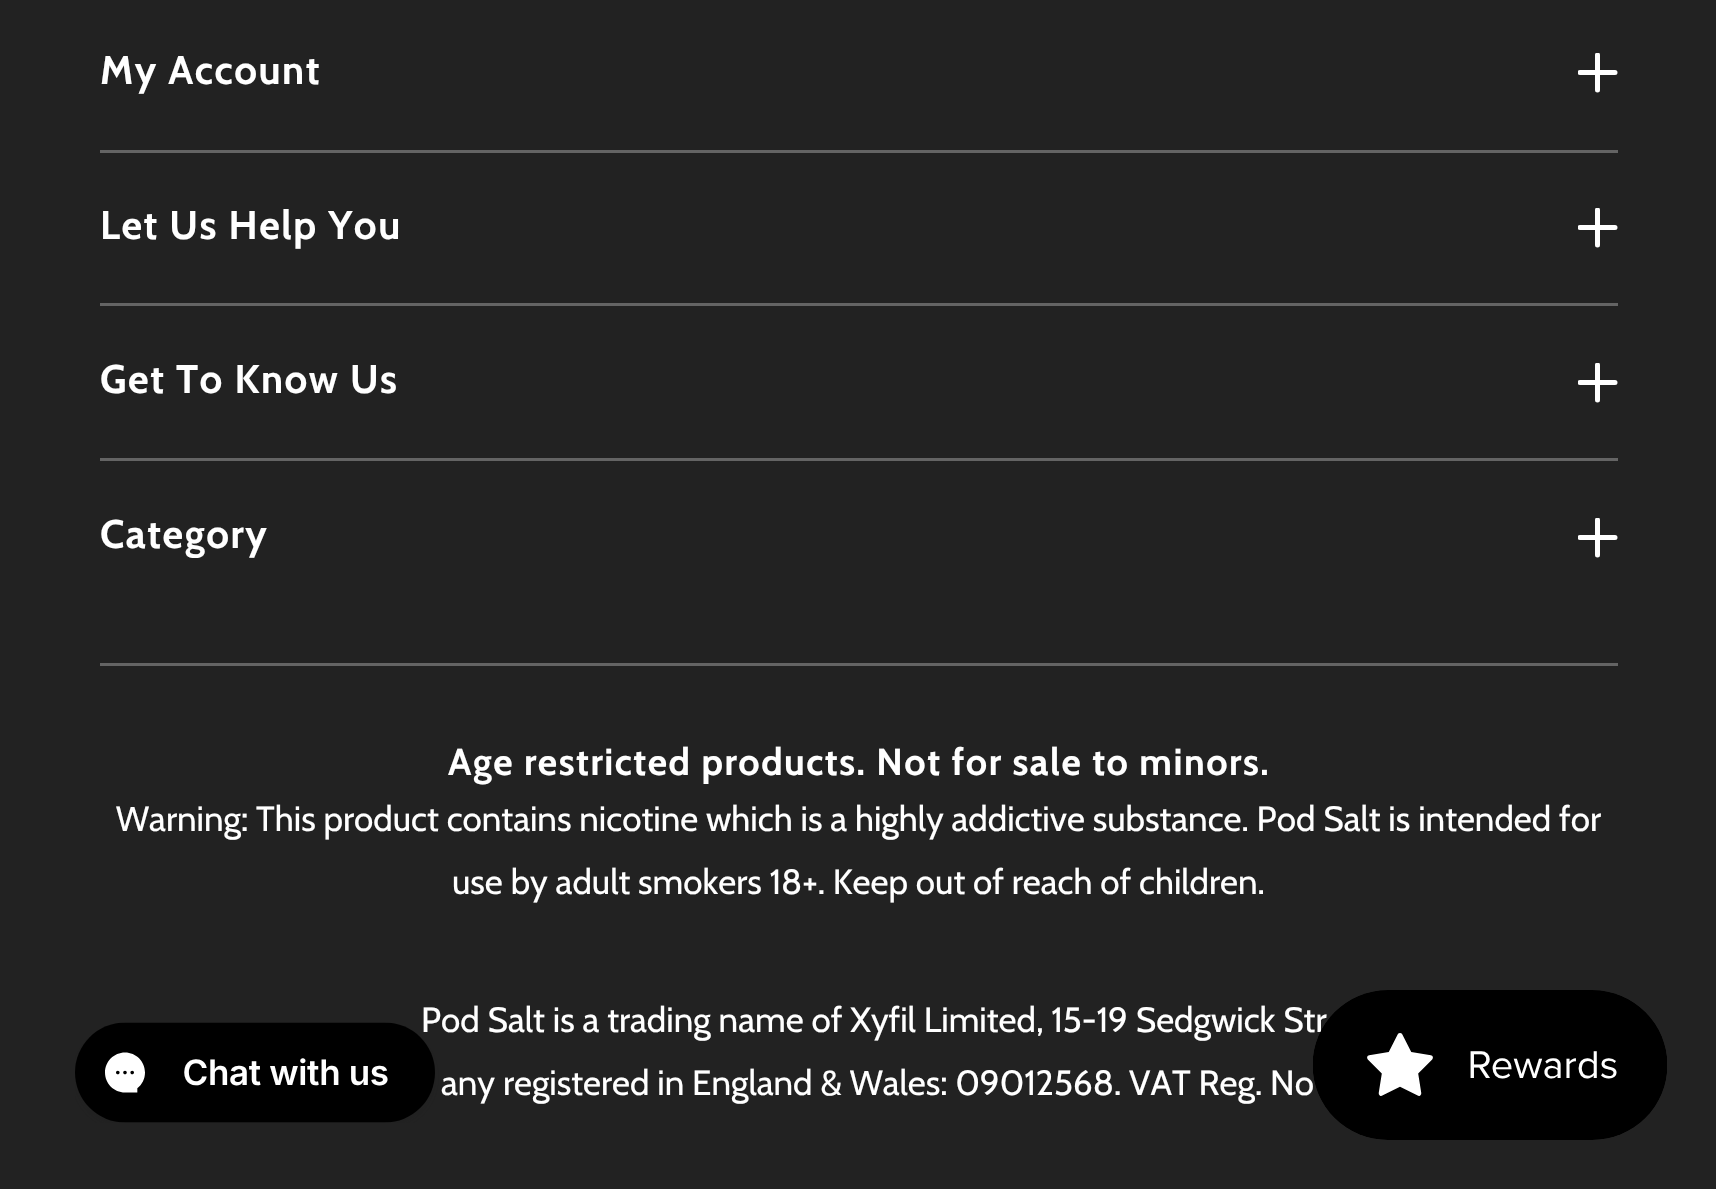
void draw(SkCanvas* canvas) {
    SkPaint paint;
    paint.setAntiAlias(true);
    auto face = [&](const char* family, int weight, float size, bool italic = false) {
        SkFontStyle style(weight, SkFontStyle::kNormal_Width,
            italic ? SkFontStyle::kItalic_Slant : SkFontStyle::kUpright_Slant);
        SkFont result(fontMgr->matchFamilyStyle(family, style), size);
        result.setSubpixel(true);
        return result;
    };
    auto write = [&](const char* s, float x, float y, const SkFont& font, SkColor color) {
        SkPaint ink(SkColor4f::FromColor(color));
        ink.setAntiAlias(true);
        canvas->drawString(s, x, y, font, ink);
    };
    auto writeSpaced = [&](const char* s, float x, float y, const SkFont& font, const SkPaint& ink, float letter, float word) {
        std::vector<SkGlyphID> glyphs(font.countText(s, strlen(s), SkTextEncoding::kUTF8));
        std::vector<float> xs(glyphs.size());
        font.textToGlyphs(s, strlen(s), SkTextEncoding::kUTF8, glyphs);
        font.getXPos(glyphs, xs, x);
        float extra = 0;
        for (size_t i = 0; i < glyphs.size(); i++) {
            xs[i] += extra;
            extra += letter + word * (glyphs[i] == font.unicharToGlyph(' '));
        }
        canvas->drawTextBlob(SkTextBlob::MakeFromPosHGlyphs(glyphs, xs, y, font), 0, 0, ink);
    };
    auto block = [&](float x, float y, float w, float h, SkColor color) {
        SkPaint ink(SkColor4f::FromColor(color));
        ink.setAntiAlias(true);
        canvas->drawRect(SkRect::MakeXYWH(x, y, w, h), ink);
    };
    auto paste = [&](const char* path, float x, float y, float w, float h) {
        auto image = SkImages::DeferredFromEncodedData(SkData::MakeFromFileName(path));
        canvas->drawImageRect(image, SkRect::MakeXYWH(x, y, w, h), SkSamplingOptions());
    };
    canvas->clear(SkColorSetRGB(34, 34, 34));
    block(100, 150, 1518, 3, SkColorSetRGB(100, 100, 100));
    auto kFont1 = face("Cabin", 700, 40);
    paint.setColor(SK_ColorWHITE);
    writeSpaced("My Account", 100, 84, kFont1, paint, 1.5f, 0);
    canvas->save();
    canvas->clipRect(SkRect::MakeXYWH(1578, 53, 40, 40));
    paint.setStyle(SkPaint::kStroke_Style);
    paint.setStrokeWidth(5);
    paint.setStrokeCap(SkPaint::kRound_Cap);
    canvas->drawPath(SkPathBuilder().moveTo(1597.5f, 55).lineTo(1597.5f, 90).moveTo(1615, 72.5f).lineTo(1580, 72.5f).detach(), paint);
    canvas->restore();
    block(100, 303, 1518, 3, SkColorSetRGB(100, 100, 100));
    paint.setStyle(SkPaint::kFill_Style);
    writeSpaced("Let Us Help You", 100, 239, kFont1, paint, 1.5f, 0);
    canvas->save();
    canvas->clipRect(SkRect::MakeXYWH(1578, 208, 40, 40));
    paint.setStyle(SkPaint::kStroke_Style);
    canvas->drawPath(SkPathBuilder().moveTo(1597.5f, 210).lineTo(1597.5f, 245).moveTo(1615, 227.5f).lineTo(1580, 227.5f).detach(), paint);
    canvas->restore();
    block(100, 458, 1518, 3, SkColorSetRGB(100, 100, 100));
    paint.setStyle(SkPaint::kFill_Style);
    writeSpaced("Get To Know Us", 100, 393, kFont1, paint, 1.5f, 0);
    canvas->save();
    canvas->clipRect(SkRect::MakeXYWH(1578, 363, 40, 40));
    paint.setStyle(SkPaint::kStroke_Style);
    canvas->drawPath(SkPathBuilder().moveTo(1597.5f, 365).lineTo(1597.5f, 400).moveTo(1615, 382.5f).lineTo(1580, 382.5f).detach(), paint);
    canvas->restore();
    paint.setStyle(SkPaint::kFill_Style);
    writeSpaced("Category", 100, 548, kFont1, paint, 1.5f, 0);
    canvas->save();
    canvas->clipRect(SkRect::MakeXYWH(1578, 518, 40, 40));
    paint.setStyle(SkPaint::kStroke_Style);
    canvas->drawPath(SkPathBuilder().moveTo(1597.5f, 520).lineTo(1597.5f, 555).moveTo(1615, 537.5f).lineTo(1580, 537.5f).detach(), paint);
    canvas->restore();
    block(100, 663, 1518, 3, SkColorSetRGB(100, 100, 100));
    auto kFont2 = face("Cabin", 700, 37.5f);
    paint.setStyle(SkPaint::kFill_Style);
    writeSpaced("Age restricted products. Not for sale to minors.", 448, 775, kFont2, paint, 1.5f, 0);
    auto kFont3 = face("Cabin", 400, 35);
    write("Warning: This product contains nicotine which is a highly addictive substance. Pod Salt is intended for", 116, 831, kFont3, SK_ColorWHITE);
    write("use by adult smokers 18+. Keep out of reach of children.", 452, 894, kFont3, SK_ColorWHITE);
    write("Pod Salt is a trading name of Xyfil Limited, 15-19 Sedgwick Str", 421, 1032, kFont3, SK_ColorWHITE);
    write("any registered in England & Wales: 09012568. VAT Reg. No", 441, 1095, kFont3, SK_ColorWHITE);
    paste("pic1.png", 75, 1022, 365, 101);
    paste("pic2.png", 1313, 990, 354, 150);
}
